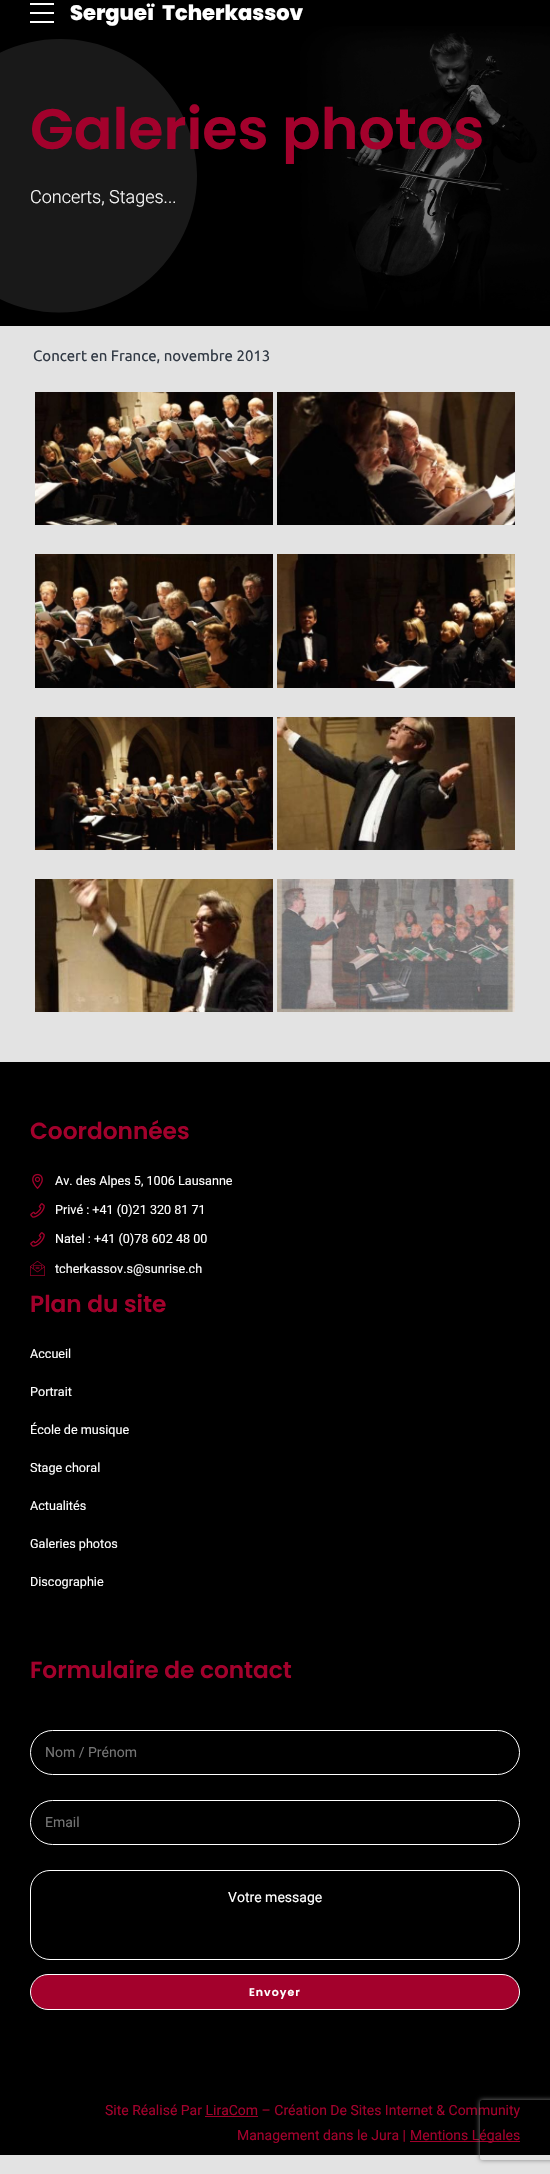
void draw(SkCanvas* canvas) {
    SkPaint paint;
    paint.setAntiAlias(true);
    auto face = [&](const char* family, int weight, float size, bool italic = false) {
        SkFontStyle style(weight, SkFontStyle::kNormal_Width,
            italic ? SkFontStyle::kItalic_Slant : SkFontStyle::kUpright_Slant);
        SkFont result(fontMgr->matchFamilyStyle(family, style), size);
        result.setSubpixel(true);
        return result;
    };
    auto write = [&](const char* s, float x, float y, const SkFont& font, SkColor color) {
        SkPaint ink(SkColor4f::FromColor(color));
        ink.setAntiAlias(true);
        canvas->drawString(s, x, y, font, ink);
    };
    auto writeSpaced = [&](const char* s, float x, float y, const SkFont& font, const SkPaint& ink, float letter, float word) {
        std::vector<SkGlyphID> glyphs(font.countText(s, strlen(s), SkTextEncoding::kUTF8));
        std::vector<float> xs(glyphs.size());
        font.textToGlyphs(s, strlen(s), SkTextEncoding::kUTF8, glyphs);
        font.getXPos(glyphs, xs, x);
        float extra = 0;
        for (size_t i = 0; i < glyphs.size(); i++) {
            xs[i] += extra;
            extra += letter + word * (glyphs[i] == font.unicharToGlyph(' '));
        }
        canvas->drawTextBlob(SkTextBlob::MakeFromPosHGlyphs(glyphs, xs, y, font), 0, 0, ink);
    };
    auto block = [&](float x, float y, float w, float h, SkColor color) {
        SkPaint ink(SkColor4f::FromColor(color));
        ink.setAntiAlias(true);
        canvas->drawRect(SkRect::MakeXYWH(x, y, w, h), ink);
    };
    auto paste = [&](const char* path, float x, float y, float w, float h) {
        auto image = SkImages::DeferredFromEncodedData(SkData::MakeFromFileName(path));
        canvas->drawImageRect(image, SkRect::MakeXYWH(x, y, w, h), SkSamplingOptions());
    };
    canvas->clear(SkColorSetRGB(227, 227, 227));
    paste("pic1.png", 0, 0, 550, 326);
    block(30, 3, 24, 2, SK_ColorWHITE);
    block(30, 12, 24, 2, SK_ColorWHITE);
    block(30, 21, 24, 2, SK_ColorWHITE);
    auto kFont1 = face("Poppins", 800, 21);
    write("Sergueï  Tcherkassov", 70, 20, kFont1, SK_ColorWHITE);
    paint.setColor(SkColorSetRGB(25, 25, 25));
    canvas->drawPath(SkPathBuilder().moveTo(197, 176).cubicTo(197, 199, 191, 221, 180, 241).cubicTo(132, 328, 10, 338, -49, 258).cubicTo(-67, 234, -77, 205, -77, 176).cubicTo(-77, 153, -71, 130, -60, 110).cubicTo(-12, 23, 110, 14, 169, 94).cubicTo(187, 117, 197, 146, 197, 176).close().detach(), paint);
    auto kFont2 = face("Poppins", 600, 57);
    write("Galeries photos", 30, 149, kFont2, SkColorSetRGB(163, 1, 44));
    auto kFont3 = face("Roboto", 300, 18);
    write("Concerts, Stages...", 30, 203, kFont3, SK_ColorWHITE);
    auto kFont4 = face("Ubuntu", 400, 15);
    write("Concert en France, novembre 2013", 33, 361, kFont4, SkColorSetRGB(50, 58, 69));
    paste("pic2.png", 35, 392, 238, 133);
    paste("pic3.png", 277, 392, 238, 133);
    paste("pic4.png", 35, 554, 238, 134);
    paste("pic5.png", 277, 554, 238, 134);
    paste("pic6.png", 35, 717, 238, 133);
    paste("pic7.png", 277, 717, 238, 133);
    paste("pic8.png", 35, 879, 238, 133);
    paste("pic9.png", 277, 879, 238, 133);
    block(0, 1062, 550, 1093, SK_ColorBLACK);
    auto kFont5 = face("Poppins", 600, 23.25f);
    write("Coordonnées", 30, 1139, kFont5, SkColorSetRGB(163, 1, 44));
    paste("pic10.png", 32, 1173, 11, 16);
    auto kFont6 = face("Roboto", 400, 12.6f);
    write("Av. des Alpes 5, 1006 Lausanne", 55, 1185, kFont6, SK_ColorWHITE);
    paste("pic11.png", 30, 1203, 15, 15);
    write("Privé : +41 (0)21 320 81 71", 55, 1214, kFont6, SK_ColorWHITE);
    paste("pic11.png", 30, 1232, 15, 15);
    write("Natel : +41 (0)78 602 48 00", 55, 1243, kFont6, SK_ColorWHITE);
    paste("pic12.png", 30, 1260, 15, 16);
    write("tcherkassov.s@sunrise.ch", 55, 1273, kFont6, SK_ColorWHITE);
    write("Plan du site", 30, 1312, kFont5, SkColorSetRGB(163, 1, 44));
    write("Accueil", 30, 1358, kFont6, SK_ColorWHITE);
    write("Portrait", 30, 1396, kFont6, SK_ColorWHITE);
    write("École de musique", 30, 1434, kFont6, SK_ColorWHITE);
    write("Stage choral", 30, 1472, kFont6, SK_ColorWHITE);
    write("Actualités", 30, 1510, kFont6, SK_ColorWHITE);
    write("Galeries photos", 30, 1548, kFont6, SK_ColorWHITE);
    write("Discographie", 30, 1586, kFont6, SK_ColorWHITE);
    write("Formulaire de contact", 30, 1678, kFont5, SkColorSetRGB(163, 1, 44));
    paint.setStyle(SkPaint::kStroke_Style);
    paint.setStrokeWidth(1);
    paint.setColor(SK_ColorWHITE);
    canvas->drawRoundRect(SkRect::MakeXYWH(30.5f, 1730.5f, 489, 44), 22, 22, paint);
    auto kFont7 = face("Roboto", 400, 14);
    write("Nom / Prénom", 45, 1757, kFont7, SkColorSetRGB(117, 117, 117));
    canvas->drawRoundRect(SkRect::MakeXYWH(30.5f, 1800.5f, 489, 44), 22, 22, paint);
    write("Email", 45, 1827, kFont7, SkColorSetRGB(117, 117, 117));
    canvas->drawRoundRect(SkRect::MakeXYWH(30.5f, 1870.5f, 489, 89), 19.5f, 19.5f, paint);
    write("Votre message", 228, 1902, kFont7, SK_ColorWHITE);
    paint.setStyle(SkPaint::kFill_Style);
    paint.setColor(SkColorSetRGB(163, 1, 44));
    canvas->drawRoundRect(SkRect::MakeXYWH(30.5f, 1974.5f, 489, 35), 17.5f, 17.5f, paint);
    paint.setStyle(SkPaint::kStroke_Style);
    paint.setColor(SK_ColorWHITE);
    canvas->drawRoundRect(SkRect::MakeXYWH(30.5f, 1974.5f, 489, 35), 17.5f, 17.5f, paint);
    auto kFont8 = face("Poppins", 600, 11);
    paint.setStyle(SkPaint::kFill_Style);
    writeSpaced("Envoyer", 249, 1996, kFont8, paint, 1, 0);
    write("Site Réalisé Par LiraCom – Création De Sites Internet & Community", 105, 2115, kFont7, SkColorSetRGB(163, 1, 44));
    block(205, 2116, 53, 1, SkColorSetRGB(163, 1, 44));
    write("Management dans le Jura |", 237, 2140, kFont7, SkColorSetRGB(163, 1, 44));
    block(410, 2141, 110, 1, SkColorSetRGB(163, 1, 44));
    write("Mentions Légales", 410, 2140, kFont7, SkColorSetRGB(163, 1, 44));
    canvas->save();
    canvas->clipPath(SkPathBuilder(SkPathFillType::kEvenOdd).moveTo(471, 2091).lineTo(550, 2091).lineTo(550, 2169).lineTo(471, 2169).close().moveTo(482, 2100).lineTo(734, 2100).cubicTo(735, 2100, 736, 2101, 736, 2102).lineTo(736, 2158).cubicTo(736, 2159, 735, 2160, 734, 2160).lineTo(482, 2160).cubicTo(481, 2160, 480, 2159, 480, 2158).lineTo(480, 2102).cubicTo(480, 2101, 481, 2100, 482, 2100).close().detach(), true);
    paint.setColor(SkColorSetRGB(128, 128, 128));
    paint.setMaskFilter(SkMaskFilter::MakeBlur(kNormal_SkBlurStyle, 2.5f));
    canvas->drawRoundRect(SkRect::MakeXYWH(480, 2100, 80, 60), 2, 2, paint);
    paint.setMaskFilter(nullptr);
    canvas->restore();
}
